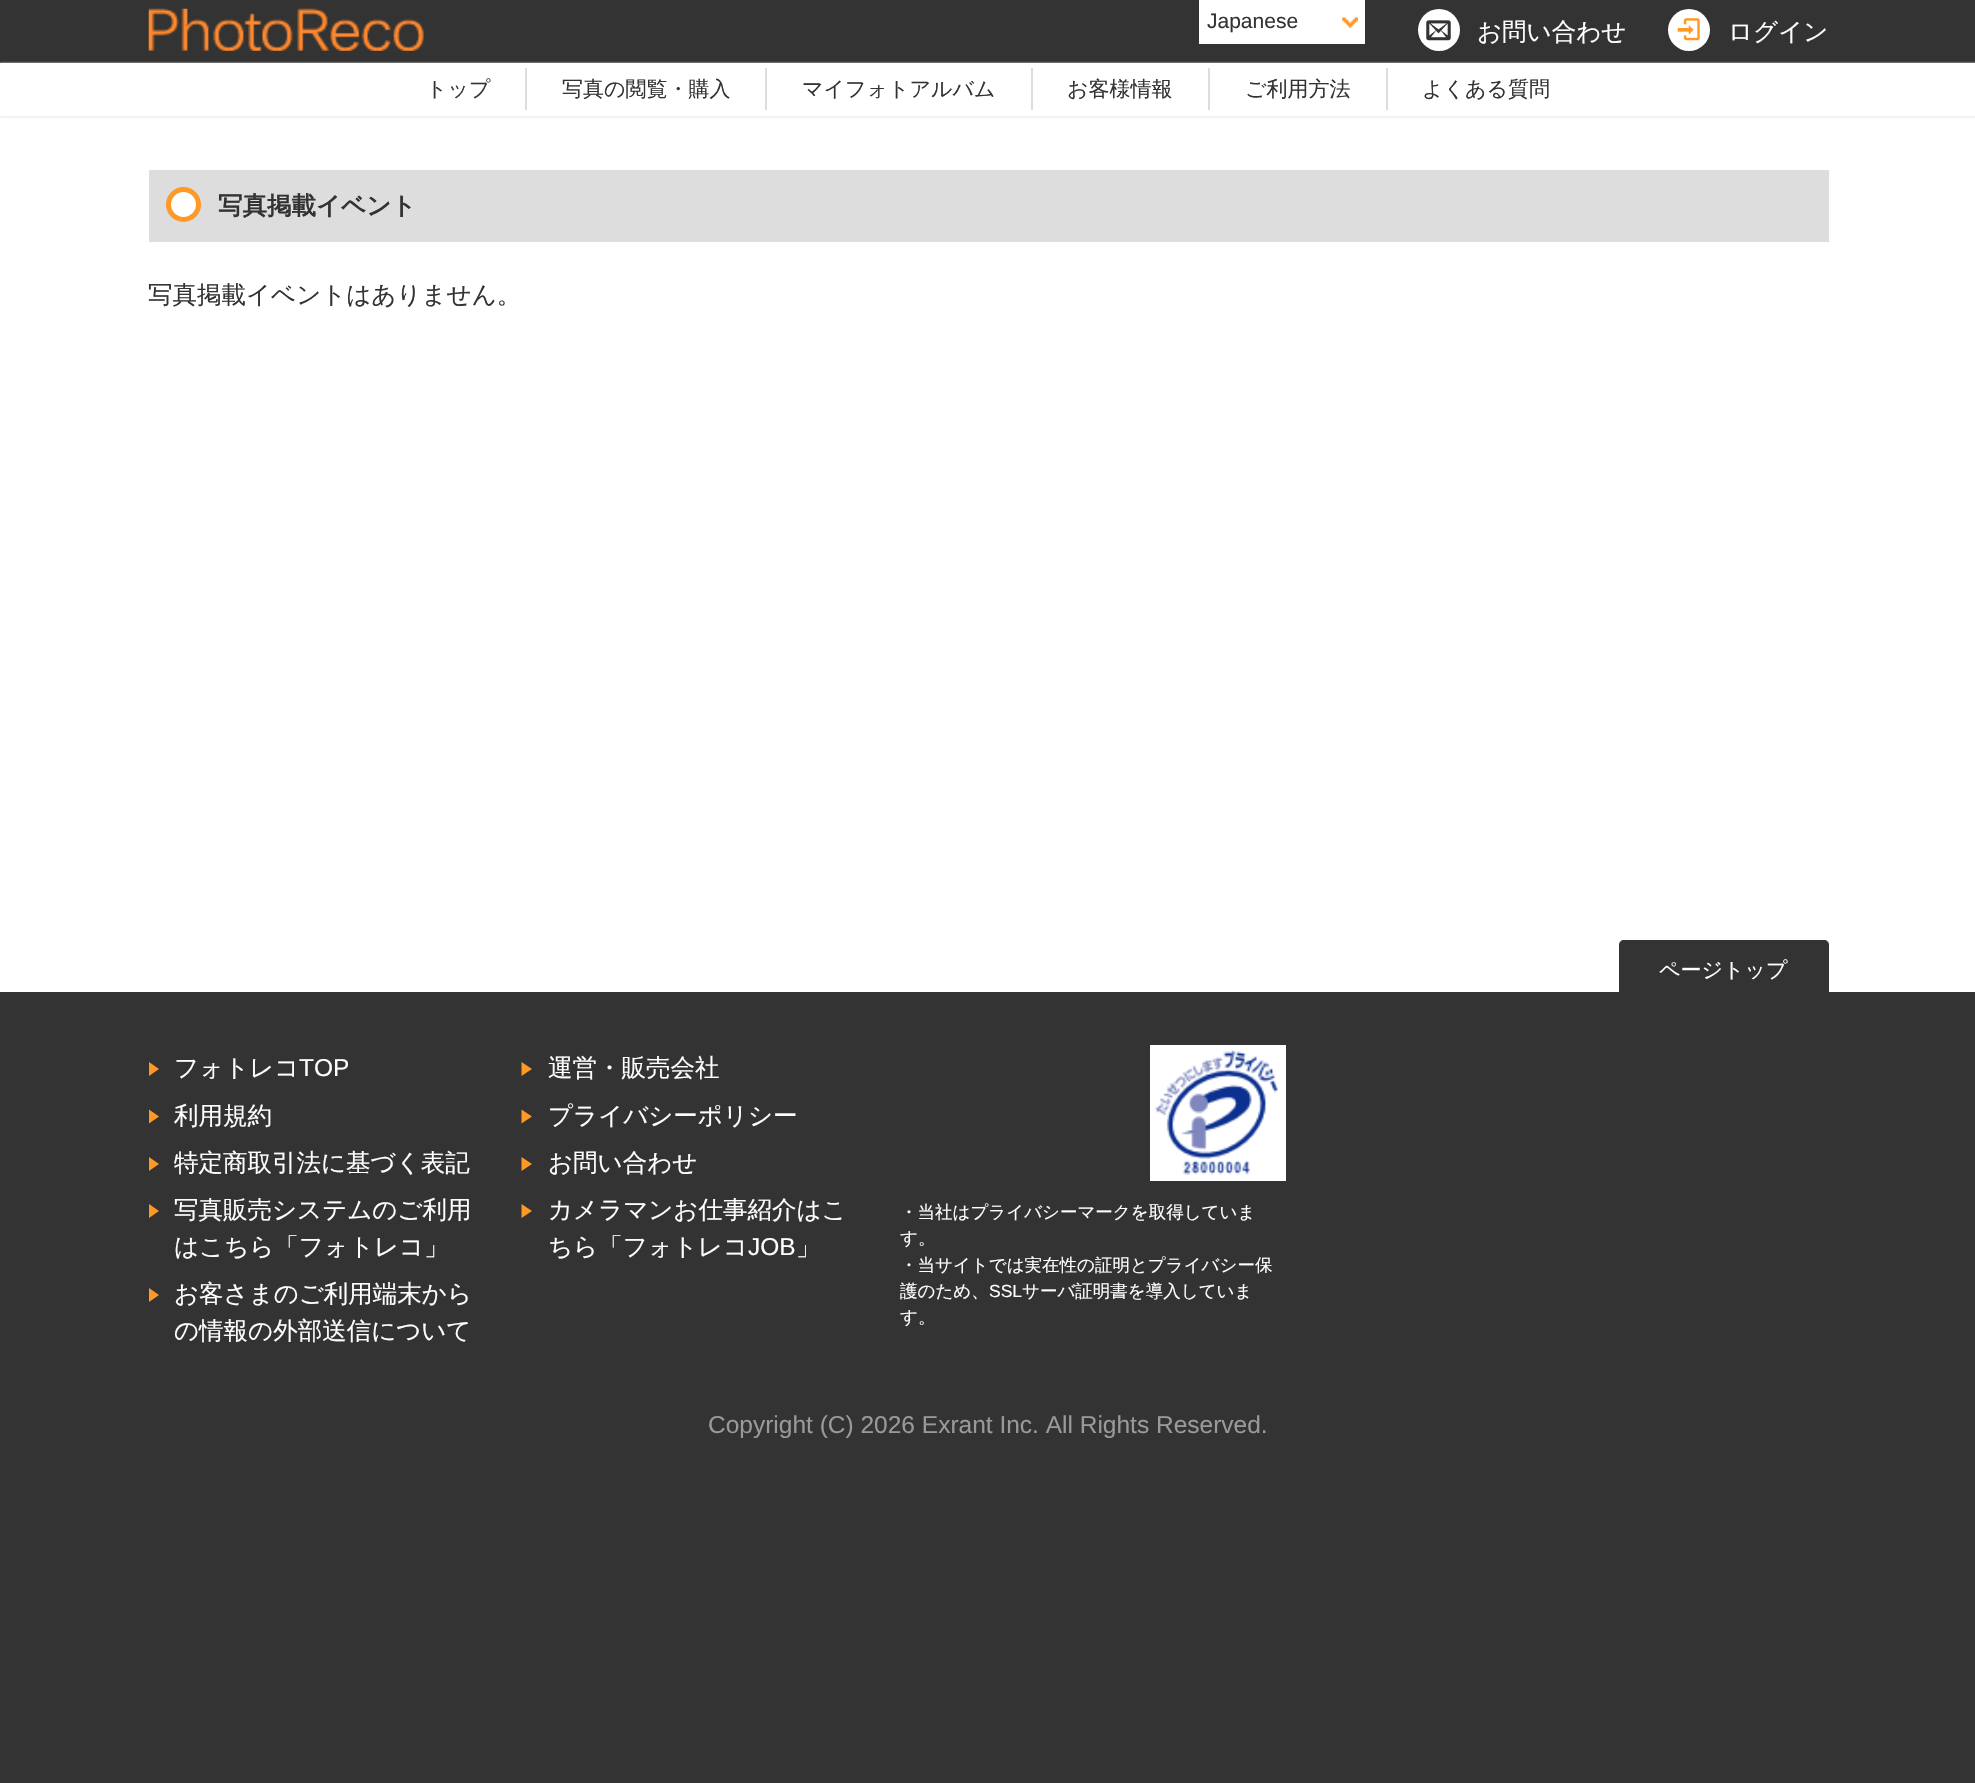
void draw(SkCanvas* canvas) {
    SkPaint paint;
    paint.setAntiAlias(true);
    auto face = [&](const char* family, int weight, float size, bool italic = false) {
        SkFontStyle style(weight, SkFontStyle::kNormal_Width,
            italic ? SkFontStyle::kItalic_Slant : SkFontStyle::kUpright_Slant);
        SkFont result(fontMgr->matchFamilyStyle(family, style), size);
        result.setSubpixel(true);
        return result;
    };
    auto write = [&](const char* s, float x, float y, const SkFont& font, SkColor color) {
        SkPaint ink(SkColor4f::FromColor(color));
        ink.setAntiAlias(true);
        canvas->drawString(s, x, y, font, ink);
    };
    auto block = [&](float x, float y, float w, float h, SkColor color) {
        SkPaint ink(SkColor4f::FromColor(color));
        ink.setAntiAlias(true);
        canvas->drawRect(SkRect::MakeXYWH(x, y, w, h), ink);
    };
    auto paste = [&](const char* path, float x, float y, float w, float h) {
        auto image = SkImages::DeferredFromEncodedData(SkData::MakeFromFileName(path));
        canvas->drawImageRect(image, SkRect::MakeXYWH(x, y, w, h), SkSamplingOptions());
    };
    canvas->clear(SkColorSetRGB(51, 51, 51));
    block(0, 118, 1975, 874, SK_ColorWHITE);
    paste("pic1.png", 148, 8, 276, 43);
    block(1199, 0, 166, 44, SK_ColorWHITE);
    paste("pic2.png", 1342, 17, 16, 11);
    auto kFont1 = face("Liberation Sans", 400, 21);
    write("Japanese", 1207, 28, kFont1, SkColorSetRGB(51, 51, 51));
    paint.setColor(SK_ColorWHITE);
    canvas->drawCircle(1439, 30, 21, paint);
    paste("pic3.png", 1426, 20, 25, 21);
    auto kFont2 = face("WenQuanYi Zen Hei", 500, 24.5f);
    write("お問い合わせ", 1477, 40, kFont2, SK_ColorWHITE);
    canvas->drawCircle(1689, 30, 21, paint);
    paste("pic4.png", 1677, 18, 23, 23);
    write("ログイン", 1728, 40, kFont2, SK_ColorWHITE);
    paint.setColor(SkColorSetRGB(238, 238, 238));
    paint.setMaskFilter(SkMaskFilter::MakeBlur(kNormal_SkBlurStyle, 1));
    canvas->drawRect(SkRect::MakeXYWH(0, 63, 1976, 54), paint);
    paint.setMaskFilter(nullptr);
    block(0, 63, 1975, 53, SK_ColorWHITE);
    block(0, 116, 1975, 2, SkColorSetRGB(242, 242, 242));
    block(525, 68, 2, 42, SkColorSetRGB(221, 221, 221));
    auto kFont3 = face("WenQuanYi Zen Hei", 500, 21);
    write("トップ", 426, 96, kFont3, SkColorSetRGB(51, 51, 51));
    block(765, 68, 2, 42, SkColorSetRGB(221, 221, 221));
    write("写真の閲覧・購入", 562, 96, kFont3, SkColorSetRGB(51, 51, 51));
    block(1031, 68, 2, 42, SkColorSetRGB(221, 221, 221));
    write("マイフォトアルバム", 802, 96, kFont3, SkColorSetRGB(51, 51, 51));
    block(1208, 68, 2, 42, SkColorSetRGB(221, 221, 221));
    write("お客様情報", 1067, 96, kFont3, SkColorSetRGB(51, 51, 51));
    block(1386, 68, 2, 42, SkColorSetRGB(221, 221, 221));
    write("ご利用方法", 1245, 96, kFont3, SkColorSetRGB(51, 51, 51));
    write("よくある質問", 1422, 96, kFont3, SkColorSetRGB(51, 51, 51));
    block(149, 170, 1680, 72, SkColorSetRGB(221, 221, 221));
    paint.setColor(SK_ColorWHITE);
    canvas->drawCircle(183.5f, 204.5f, 15, paint);
    paint.setStyle(SkPaint::kStroke_Style);
    paint.setStrokeWidth(5);
    paint.setColor(SkColorSetRGB(255, 153, 38));
    canvas->drawCircle(183.5f, 204.5f, 15, paint);
    auto kFont4 = face("WenQuanYi Zen Hei", 700, 24.5f);
    write("写真掲載イベント", 218, 214, kFont4, SkColorSetRGB(51, 51, 51));
    write("写真掲載イベントはありません。", 148, 303, kFont2, SkColorSetRGB(51, 51, 51));
    paint.setStyle(SkPaint::kFill_Style);
    paint.setColor(SkColorSetRGB(51, 51, 51));
    canvas->drawPath(SkPathBuilder().moveTo(1624, 940).lineTo(1824, 940).cubicTo(1827, 940, 1829, 942, 1829, 945).lineTo(1829, 992).lineTo(1619, 992).lineTo(1619, 945).cubicTo(1619, 942, 1621, 940, 1624, 940).close().detach(), paint);
    write("ページトップ", 1659, 977, kFont3, SK_ColorWHITE);
    paint.setColor(SkColorSetRGB(255, 153, 38));
    canvas->drawPath(SkPathBuilder().moveTo(149, 1076).lineTo(149, 1062).lineTo(159, 1069).close().detach(), paint);
    write("フォトレコ", 174, 1076, kFont2, SK_ColorWHITE);
    auto kFont5 = face("Liberation Sans", 400, 24.5f);
    write("TOP", 299, 1076, kFont5, SK_ColorWHITE);
    canvas->drawPath(SkPathBuilder().moveTo(521.5f, 1076).lineTo(521.5f, 1062).lineTo(532, 1069).close().detach(), paint);
    write("運営・販売会社", 548, 1076, kFont2, SK_ColorWHITE);
    canvas->drawPath(SkPathBuilder().moveTo(149, 1123.5f).lineTo(149, 1109.5f).lineTo(159, 1116.5f).close().detach(), paint);
    write("利用規約", 174, 1124, kFont2, SK_ColorWHITE);
    canvas->drawPath(SkPathBuilder().moveTo(521.5f, 1123.5f).lineTo(521.5f, 1109.5f).lineTo(532, 1116.5f).close().detach(), paint);
    write("プライバシーポリシー", 548, 1124, kFont2, SK_ColorWHITE);
    canvas->drawPath(SkPathBuilder().moveTo(149, 1171).lineTo(149, 1157).lineTo(159, 1164).close().detach(), paint);
    write("特定商取引法に基づく表記", 174, 1171, kFont2, SK_ColorWHITE);
    canvas->drawPath(SkPathBuilder().moveTo(521.5f, 1171).lineTo(521.5f, 1157).lineTo(532, 1164).close().detach(), paint);
    write("お問い合わせ", 548, 1171, kFont2, SK_ColorWHITE);
    canvas->drawPath(SkPathBuilder().moveTo(149, 1218).lineTo(149, 1204).lineTo(159, 1211).close().detach(), paint);
    write("写真販売システムのご利用", 174, 1218, kFont2, SK_ColorWHITE);
    write("はこちら「フォトレコ」", 174, 1255, kFont2, SK_ColorWHITE);
    canvas->drawPath(SkPathBuilder().moveTo(521.5f, 1218).lineTo(521.5f, 1204).lineTo(532, 1211).close().detach(), paint);
    write("カメラマンお仕事紹介はこ", 548, 1218, kFont2, SK_ColorWHITE);
    write("ちら「フォトレコ", 548, 1255, kFont2, SK_ColorWHITE);
    write("JOB", 748, 1255, kFont5, SK_ColorWHITE);
    write("」", 796, 1255, kFont2, SK_ColorWHITE);
    canvas->drawPath(SkPathBuilder().moveTo(149, 1302).lineTo(149, 1288).lineTo(159, 1295).close().detach(), paint);
    write("お客さまのご利用端末から", 174, 1302, kFont2, SK_ColorWHITE);
    write("の情報の外部送信について", 174, 1339, kFont2, SK_ColorWHITE);
    block(1150, 1045, 136, 136, SK_ColorWHITE);
    paste("pic5.png", 1154, 1049, 124, 126);
    auto kFont6 = face("WenQuanYi Zen Hei", 500, 17.5f);
    write("・当社はプライバシーマークを取得していま", 900, 1218, kFont6, SK_ColorWHITE);
    write("す。", 900, 1244, kFont6, SK_ColorWHITE);
    write("・当サイトでは実在性の証明とプライバシー保", 900, 1271, kFont6, SK_ColorWHITE);
    write("護のため、", 900, 1297, kFont6, SK_ColorWHITE);
    auto kFont7 = face("Liberation Sans", 400, 17.5f);
    write("SSL", 989, 1297, kFont7, SK_ColorWHITE);
    write("サーバ証明書を導入していま", 1022, 1297, kFont6, SK_ColorWHITE);
    write("す。", 900, 1323, kFont6, SK_ColorWHITE);
    write("Copyright (C) 2026 Exrant Inc. All Rights Reserved.", 708, 1433, kFont5, SkColorSetRGB(153, 153, 153));
}
